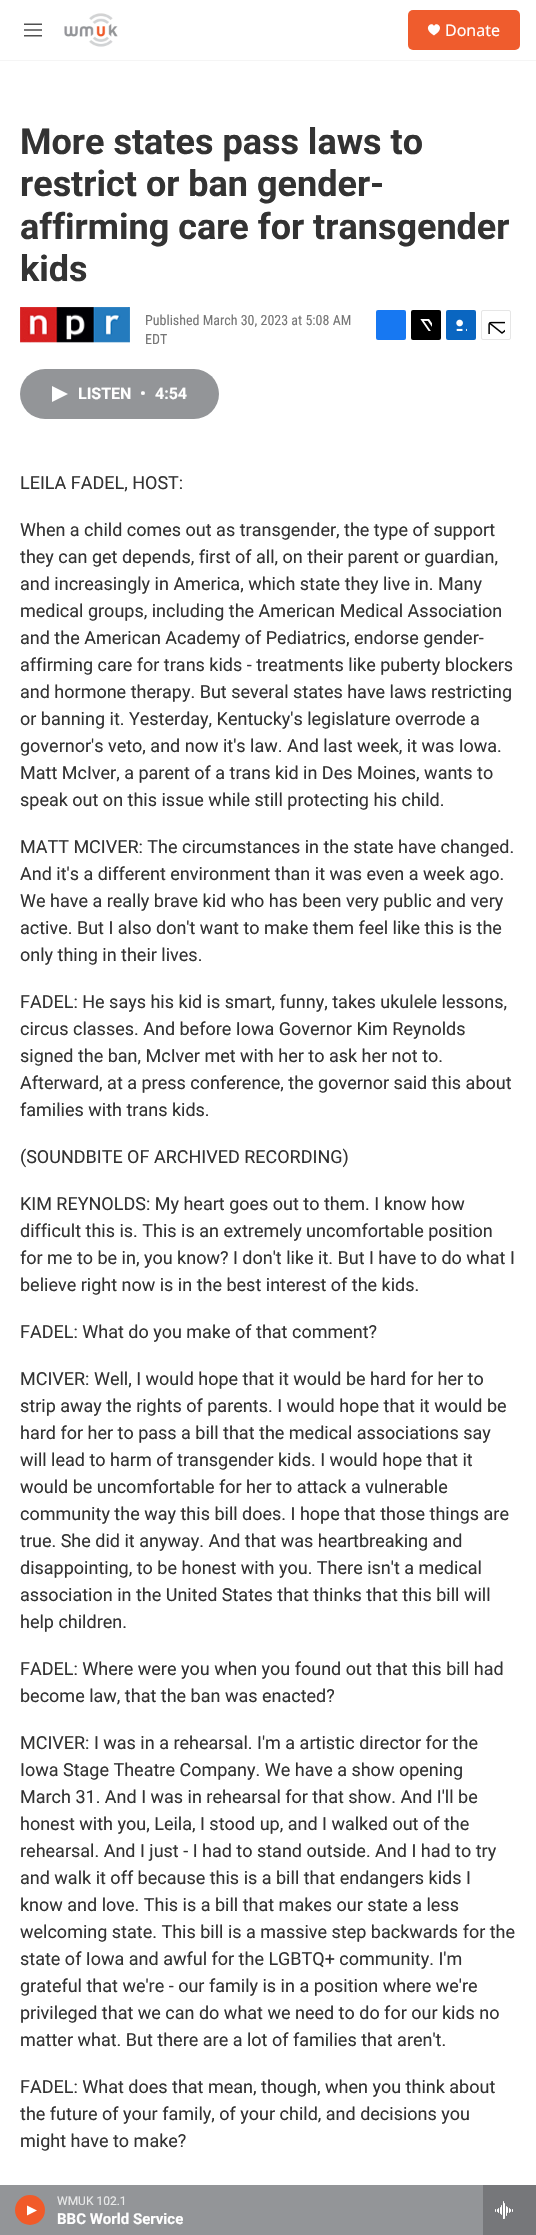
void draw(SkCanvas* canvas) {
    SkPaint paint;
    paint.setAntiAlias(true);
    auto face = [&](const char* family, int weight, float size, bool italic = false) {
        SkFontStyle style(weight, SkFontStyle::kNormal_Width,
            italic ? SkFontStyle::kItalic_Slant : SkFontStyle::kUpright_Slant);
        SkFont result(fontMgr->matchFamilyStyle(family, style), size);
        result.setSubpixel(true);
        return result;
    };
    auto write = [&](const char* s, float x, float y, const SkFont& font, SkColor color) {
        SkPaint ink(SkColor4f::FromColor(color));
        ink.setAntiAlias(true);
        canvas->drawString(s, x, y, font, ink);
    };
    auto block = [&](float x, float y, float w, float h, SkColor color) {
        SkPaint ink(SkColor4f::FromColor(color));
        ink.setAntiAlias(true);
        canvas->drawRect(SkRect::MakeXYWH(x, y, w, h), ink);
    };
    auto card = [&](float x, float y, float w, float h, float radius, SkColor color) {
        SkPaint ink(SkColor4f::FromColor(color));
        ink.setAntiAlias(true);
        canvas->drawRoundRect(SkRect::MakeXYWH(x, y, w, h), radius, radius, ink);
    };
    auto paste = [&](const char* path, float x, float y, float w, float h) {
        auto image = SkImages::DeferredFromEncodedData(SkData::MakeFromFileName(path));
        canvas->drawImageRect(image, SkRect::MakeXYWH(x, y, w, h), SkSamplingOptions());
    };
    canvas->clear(SK_ColorWHITE);
    block(0, 60, 536, 1, SkColorSetRGB(245, 245, 245));
    paste("pic1.png", 24, 23, 18, 14);
    paste("pic2.png", 64, 13, 54, 34);
    card(408, 10, 112, 40, 5, SkColorSetRGB(239, 92, 45));
    paint.setColor(SK_ColorWHITE);
    canvas->drawPath(SkPathBuilder().moveTo(434, 26).cubicTo(432, 21, 421.5f, 28, 434, 35.5f).cubicTo(446.5f, 28, 436, 21, 434, 26).close().detach(), paint);
    auto kFont1 = face("Noto Sans", 400, 16);
    write("Donate", 445, 36, kFont1, SK_ColorWHITE);
    block(0, 2185, 483, 50, SkColorSetRGB(147, 149, 152));
    paint.setColor(SkColorSetRGB(241, 90, 41));
    canvas->drawCircle(30, 2210, 15, paint);
    paint.setColor(SK_ColorWHITE);
    canvas->drawPath(SkPathBuilder().moveTo(27, 2205.5f).lineTo(37, 2210.5f).lineTo(27, 2215.5f).close().detach(), paint);
    auto kFont2 = face("Roboto", 400, 12);
    write("WMUK 102.1", 57, 2205, kFont2, SkColorSetRGB(233, 234, 234));
    auto kFont3 = face("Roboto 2", 700, 15);
    write("BBC World Service", 57, 2224, kFont3, SK_ColorWHITE);
    block(483, 2185, 53, 50, SkColorSetRGB(118, 119, 122));
    paste("pic3.png", 495, 2201, 18, 18);
    auto kFont4 = face("Roboto", 700, 36);
    write("More states pass laws to", 20, 154, kFont4, SkColorSetRGB(51, 51, 51));
    write("restrict or ban gender-", 20, 196, kFont4, SkColorSetRGB(51, 51, 51));
    write("affirming care for transgender", 20, 239, kFont4, SkColorSetRGB(51, 51, 51));
    write("kids", 20, 281, kFont4, SkColorSetRGB(51, 51, 51));
    paste("pic4.png", 20, 307, 110, 36);
    auto kFont5 = face("Roboto Condensed", 400, 14);
    write("Published March 30, 2023 at 5:08 AM", 145, 325, kFont5, SkColorSetRGB(118, 118, 118));
    write("EDT", 145, 344, kFont5, SkColorSetRGB(118, 118, 118));
    card(376, 310, 30, 30, 2, SkColorSetRGB(23, 120, 242));
    card(411, 310, 30, 30, 2, SK_ColorBLACK);
    paste("pic5.png", 420, 319, 12, 12);
    card(446, 310, 30, 30, 2, SkColorSetRGB(10, 102, 193));
    paste("pic6.png", 456, 319, 11, 12);
    paint.setStyle(SkPaint::kStroke_Style);
    paint.setStrokeWidth(1);
    paint.setColor(SkColorSetRGB(230, 230, 230));
    canvas->drawRoundRect(SkRect::MakeXYWH(481.5f, 310.5f, 29, 29), 1.5f, 1.5f, paint);
    paste("pic7.png", 488, 321, 17, 13);
    card(20, 369, 199, 50, 25, SkColorSetRGB(147, 149, 152));
    paint.setStyle(SkPaint::kFill_Style);
    paint.setColor(SK_ColorWHITE);
    canvas->drawPath(SkPathBuilder().moveTo(52, 386).lineTo(68, 394).lineTo(52, 402).close().detach(), paint);
    auto kFont6 = face("Roboto 2", 700, 16);
    write("LISTEN", 78, 399, kFont6, SK_ColorWHITE);
    write("•", 140, 399, kFont6, SK_ColorWHITE);
    write("4:54", 155, 399, kFont6, SK_ColorWHITE);
    auto kFont7 = face("Roboto", 400, 18);
    write("LEILA FADEL, HOST:", 20, 489, kFont7, SkColorSetRGB(51, 51, 51));
    write("When a child comes out as transgender, the type of support", 20, 536, kFont7, SkColorSetRGB(51, 51, 51));
    write("they can get depends, first of all, on their parent or guardian,", 20, 563, kFont7, SkColorSetRGB(51, 51, 51));
    write("and increasingly in America, which state they live in. Many", 20, 590, kFont7, SkColorSetRGB(51, 51, 51));
    write("medical groups, including the American Medical Association", 20, 617, kFont7, SkColorSetRGB(51, 51, 51));
    write("and the American Academy of Pediatrics, endorse gender-", 20, 644, kFont7, SkColorSetRGB(51, 51, 51));
    write("affirming care for trans kids - treatments like puberty blockers", 20, 671, kFont7, SkColorSetRGB(51, 51, 51));
    write("and hormone therapy. But several states have laws restricting", 20, 698, kFont7, SkColorSetRGB(51, 51, 51));
    write("or banning it. Yesterday, Kentucky's legislature overrode a", 20, 725, kFont7, SkColorSetRGB(51, 51, 51));
    write("governor's veto, and now it's law. And last week, it was Iowa.", 20, 752, kFont7, SkColorSetRGB(51, 51, 51));
    write("Matt McIver, a parent of a trans kid in Des Moines, wants to", 20, 779, kFont7, SkColorSetRGB(51, 51, 51));
    write("speak out on this issue while still protecting his child.", 20, 806, kFont7, SkColorSetRGB(51, 51, 51));
    write("MATT MCIVER: The circumstances in the state have changed.", 20, 853, kFont7, SkColorSetRGB(51, 51, 51));
    write("And it's a different environment than it was even a week ago.", 20, 880, kFont7, SkColorSetRGB(51, 51, 51));
    write("We have a really brave kid who has been very public and very", 20, 907, kFont7, SkColorSetRGB(51, 51, 51));
    write("active. But I also don't want to make them feel like this is the", 20, 934, kFont7, SkColorSetRGB(51, 51, 51));
    write("only thing in their lives.", 20, 961, kFont7, SkColorSetRGB(51, 51, 51));
    write("FADEL: He says his kid is smart, funny, takes ukulele lessons,", 20, 1008, kFont7, SkColorSetRGB(51, 51, 51));
    write("circus classes. And before Iowa Governor Kim Reynolds", 20, 1035, kFont7, SkColorSetRGB(51, 51, 51));
    write("signed the ban, McIver met with her to ask her not to.", 20, 1062, kFont7, SkColorSetRGB(51, 51, 51));
    write("Afterward, at a press conference, the governor said this about", 20, 1089, kFont7, SkColorSetRGB(51, 51, 51));
    write("families with trans kids.", 20, 1116, kFont7, SkColorSetRGB(51, 51, 51));
    write("(SOUNDBITE OF ARCHIVED RECORDING)", 20, 1163, kFont7, SkColorSetRGB(51, 51, 51));
    write("KIM REYNOLDS: My heart goes out to them. I know how", 20, 1210, kFont7, SkColorSetRGB(51, 51, 51));
    write("difficult this is. This is an extremely uncomfortable position", 20, 1237, kFont7, SkColorSetRGB(51, 51, 51));
    write("for me to be in, you know? I don't like it. But I have to do what I", 20, 1264, kFont7, SkColorSetRGB(51, 51, 51));
    write("believe right now is in the best interest of the kids.", 20, 1291, kFont7, SkColorSetRGB(51, 51, 51));
    write("FADEL: What do you make of that comment?", 20, 1338, kFont7, SkColorSetRGB(51, 51, 51));
    write("MCIVER: Well, I would hope that it would be hard for her to", 20, 1385, kFont7, SkColorSetRGB(51, 51, 51));
    write("strip away the rights of parents. I would hope that it would be", 20, 1412, kFont7, SkColorSetRGB(51, 51, 51));
    write("hard for her to pass a bill that the medical associations say", 20, 1439, kFont7, SkColorSetRGB(51, 51, 51));
    write("will lead to harm of transgender kids. I would hope that it", 20, 1466, kFont7, SkColorSetRGB(51, 51, 51));
    write("would be uncomfortable for her to attack a vulnerable", 20, 1493, kFont7, SkColorSetRGB(51, 51, 51));
    write("community the way this bill does. I hope that those things are", 20, 1520, kFont7, SkColorSetRGB(51, 51, 51));
    write("true. She did it anyway. And that was heartbreaking and", 20, 1547, kFont7, SkColorSetRGB(51, 51, 51));
    write("disappointing, to be honest with you. There isn't a medical", 20, 1574, kFont7, SkColorSetRGB(51, 51, 51));
    write("association in the United States that thinks that this bill will", 20, 1601, kFont7, SkColorSetRGB(51, 51, 51));
    write("help children.", 20, 1628, kFont7, SkColorSetRGB(51, 51, 51));
    write("FADEL: Where were you when you found out that this bill had", 20, 1675, kFont7, SkColorSetRGB(51, 51, 51));
    write("become law, that the ban was enacted?", 20, 1702, kFont7, SkColorSetRGB(51, 51, 51));
    write("MCIVER: I was in a rehearsal. I'm a artistic director for the", 20, 1749, kFont7, SkColorSetRGB(51, 51, 51));
    write("Iowa Stage Theatre Company. We have a show opening", 20, 1776, kFont7, SkColorSetRGB(51, 51, 51));
    write("March 31. And I was in rehearsal for that show. And I'll be", 20, 1803, kFont7, SkColorSetRGB(51, 51, 51));
    write("honest with you, Leila, I stood up, and I walked out of the", 20, 1830, kFont7, SkColorSetRGB(51, 51, 51));
    write("rehearsal. And I just - I had to stand outside. And I had to try", 20, 1857, kFont7, SkColorSetRGB(51, 51, 51));
    write("and walk it off because this is a bill that endangers kids I", 20, 1884, kFont7, SkColorSetRGB(51, 51, 51));
    write("know and love. This is a bill that makes our state a less", 20, 1911, kFont7, SkColorSetRGB(51, 51, 51));
    write("welcoming state. This bill is a massive step backwards for the", 20, 1938, kFont7, SkColorSetRGB(51, 51, 51));
    write("state of Iowa and awful for the LGBTQ+ community. I'm", 20, 1965, kFont7, SkColorSetRGB(51, 51, 51));
    write("grateful that we're - our family is in a position where we're", 20, 1992, kFont7, SkColorSetRGB(51, 51, 51));
    write("privileged that we can do what we need to do for our kids no", 20, 2019, kFont7, SkColorSetRGB(51, 51, 51));
    write("matter what. But there are a lot of families that aren't.", 20, 2046, kFont7, SkColorSetRGB(51, 51, 51));
    write("FADEL: What does that mean, though, when you think about", 20, 2093, kFont7, SkColorSetRGB(51, 51, 51));
    write("the future of your family, of your child, and decisions you", 20, 2120, kFont7, SkColorSetRGB(51, 51, 51));
    write("might have to make?", 20, 2147, kFont7, SkColorSetRGB(51, 51, 51));
}
